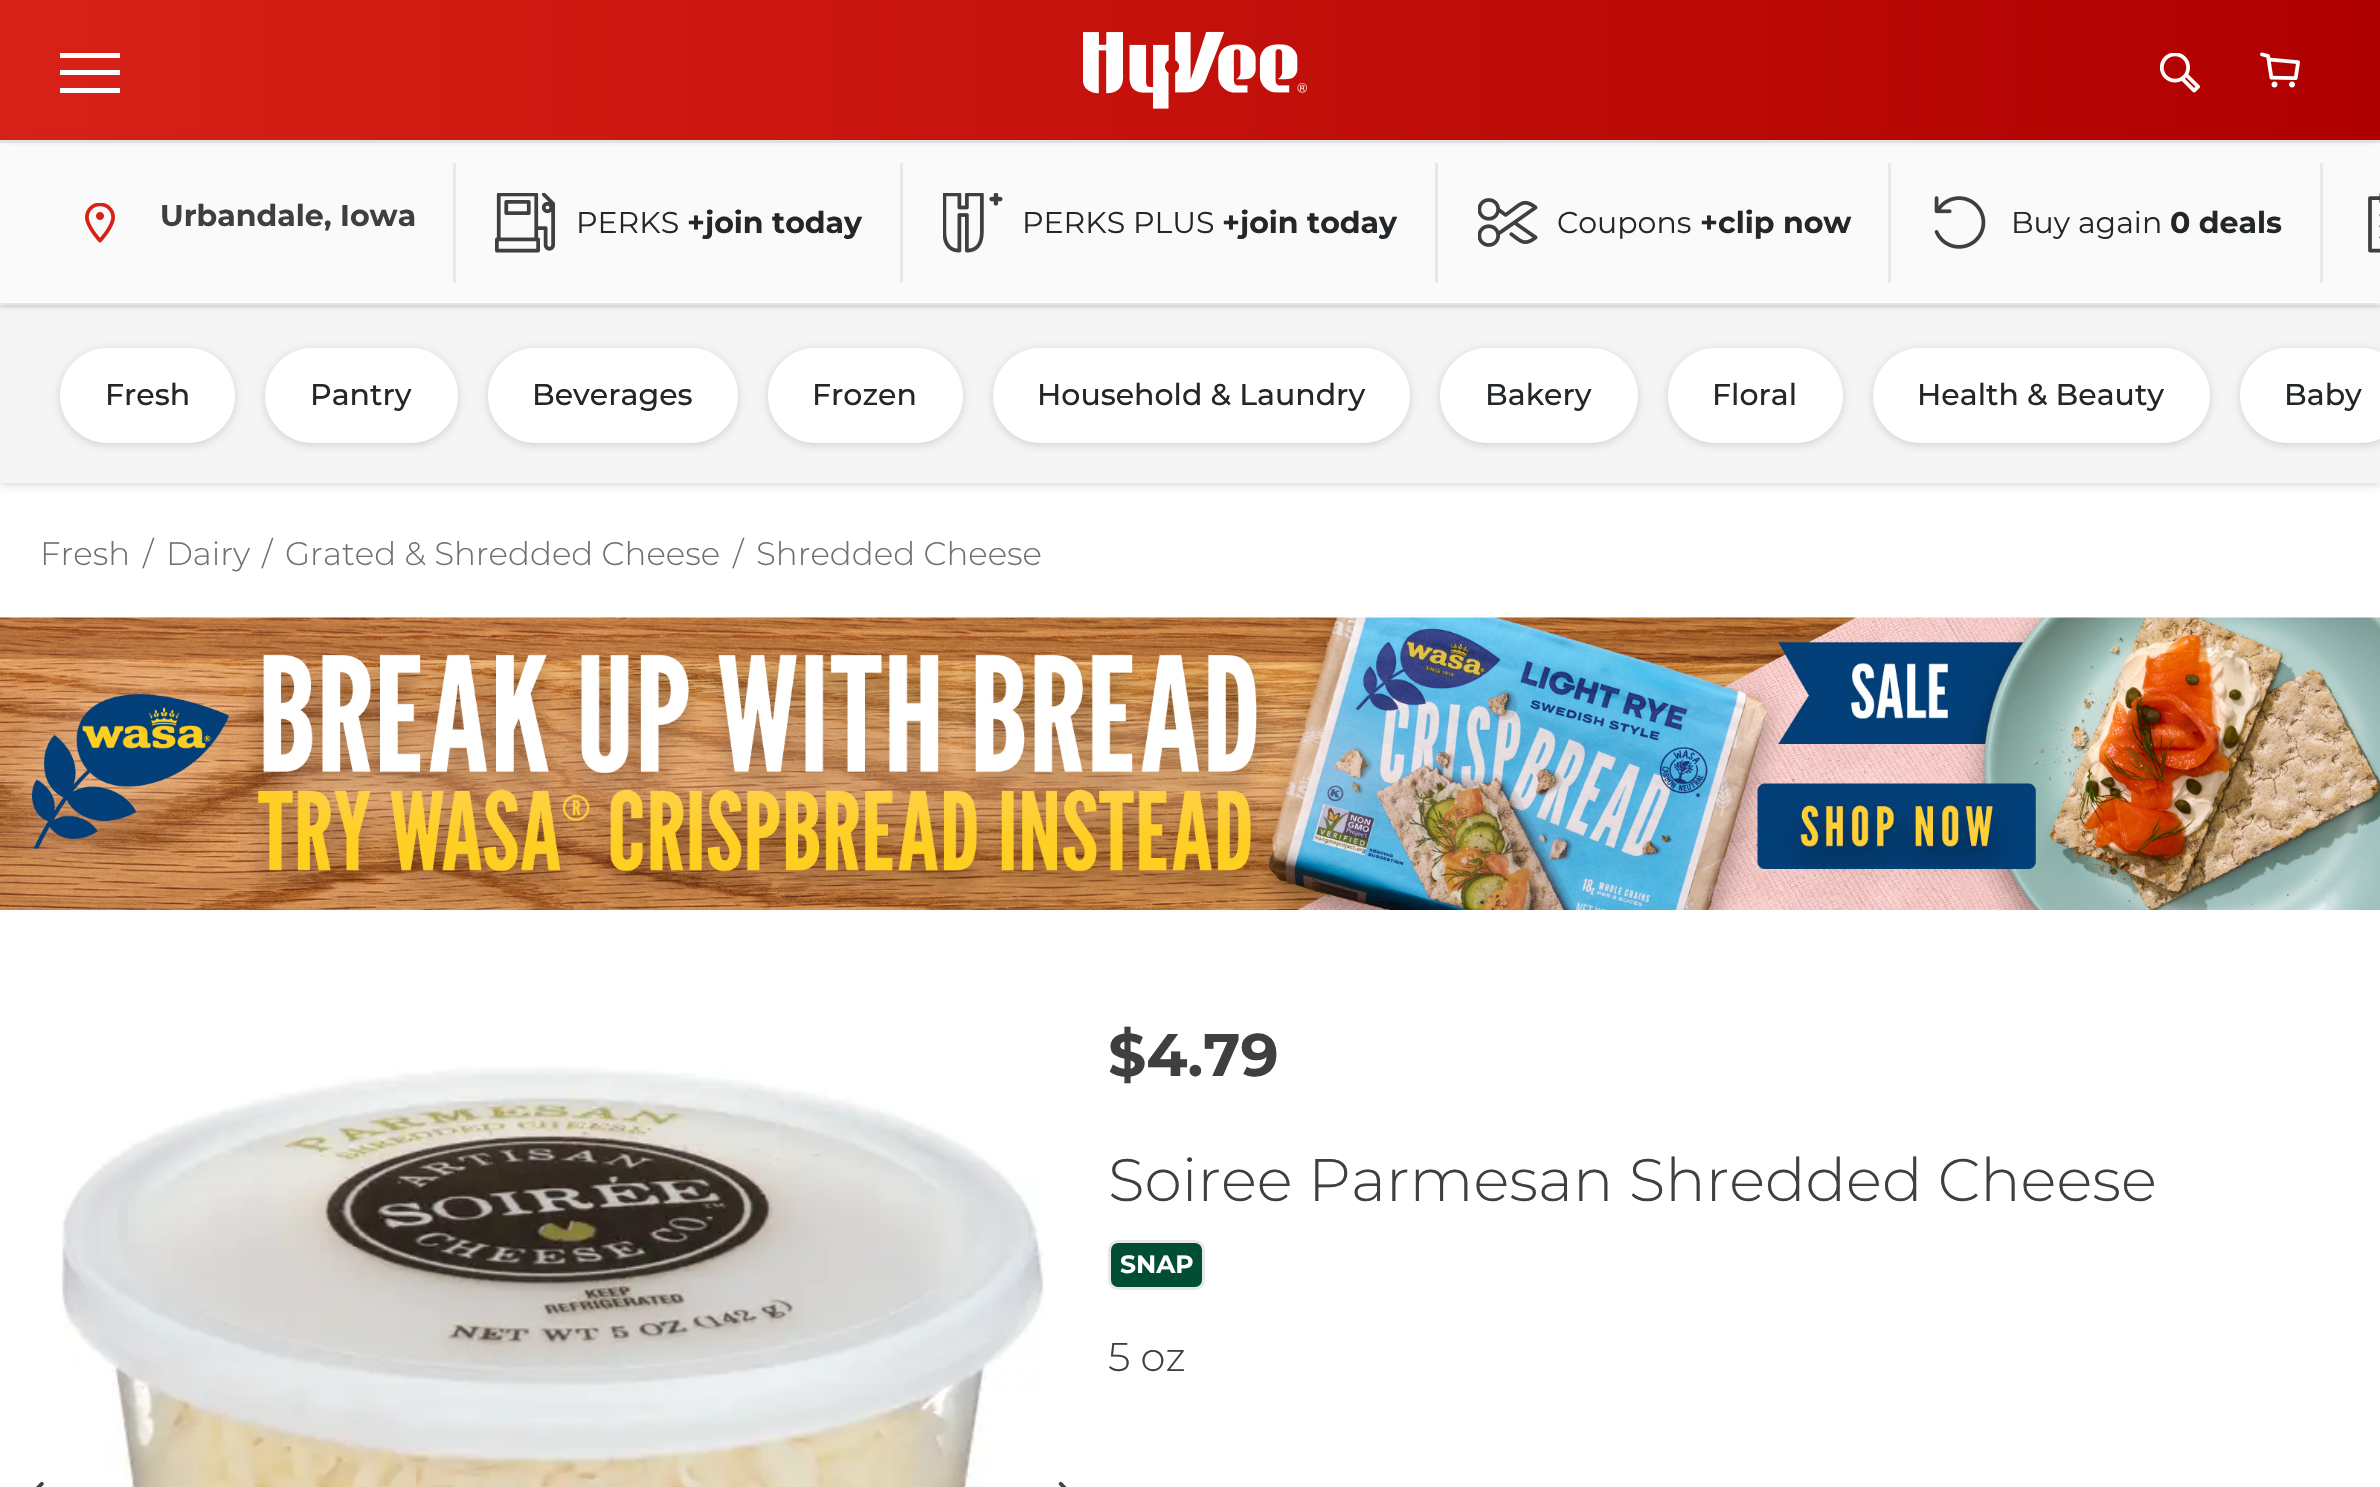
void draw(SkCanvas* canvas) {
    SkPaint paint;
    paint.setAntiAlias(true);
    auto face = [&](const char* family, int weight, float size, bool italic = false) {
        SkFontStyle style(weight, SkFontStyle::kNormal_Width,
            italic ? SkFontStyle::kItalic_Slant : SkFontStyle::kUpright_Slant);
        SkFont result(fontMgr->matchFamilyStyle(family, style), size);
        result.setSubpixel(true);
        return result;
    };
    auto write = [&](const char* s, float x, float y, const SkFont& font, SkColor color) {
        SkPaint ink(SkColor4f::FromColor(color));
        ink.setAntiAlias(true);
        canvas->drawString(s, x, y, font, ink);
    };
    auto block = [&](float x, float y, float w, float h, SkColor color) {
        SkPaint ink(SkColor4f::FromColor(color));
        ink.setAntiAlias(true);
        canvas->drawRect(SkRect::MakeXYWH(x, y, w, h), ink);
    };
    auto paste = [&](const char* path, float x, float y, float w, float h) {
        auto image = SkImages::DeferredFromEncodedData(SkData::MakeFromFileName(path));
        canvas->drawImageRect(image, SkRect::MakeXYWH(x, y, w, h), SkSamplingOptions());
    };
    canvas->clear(SK_ColorWHITE);
    paint.setColor(SkColorSetARGB(38, 0, 0, 0));
    paint.setMaskFilter(SkMaskFilter::MakeBlur(kNormal_SkBlurStyle, 4));
    canvas->drawRect(SkRect::MakeXYWH(0, 308, 2380, 177), paint);
    paint.setMaskFilter(nullptr);
    block(3, 302, 2374, 1, SK_ColorWHITE);
    {
        const SkColor colors[] = {SkColorSetRGB(216, 33, 23), SkColorSetRGB(175, 0, 0)};
        const float stops[] = {0, 1};
        const SkPoint ends[] = {{0, 70}, {2380, 70}};
        paint.setShader(SkGradientShader::MakeLinear(ends, colors, stops, 2, SkTileMode::kClamp));
        paint.setAlpha(255);
    }
    canvas->drawRect(SkRect::MakeXYWH(0, 0, 2380, 140), paint);
    canvas->save();
    canvas->clipRect(SkRect::MakeXYWH(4, 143, 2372, 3));
    paint.setShader(nullptr);
    paint.setColor(SkColorSetARGB(51, 0, 0, 0));
    paint.setMaskFilter(SkMaskFilter::MakeBlur(kNormal_SkBlurStyle, 5));
    canvas->drawRect(SkRect::MakeXYWH(5, 10, 2370, 130), paint);
    paint.setMaskFilter(nullptr);
    canvas->restore();
    block(60, 70, 60, 5, SK_ColorWHITE);
    block(60, 53, 60, 5, SK_ColorWHITE);
    block(60, 88, 60, 5, SK_ColorWHITE);
    paste("pic1.png", 1083, 31, 224, 78);
    paste("pic2.png", 2160, 53, 40, 40);
    paste("pic3.png", 2260, 52, 40, 36);
    block(0, 140, 2380, 3, SkColorSetRGB(232, 232, 232));
    block(0, 308, 2380, 175, SkColorSetRGB(245, 245, 245));
    block(0, 305, 2380, 3, SkColorSetRGB(232, 232, 232));
    canvas->save();
    canvas->clipPath(SkPathBuilder(SkPathFillType::kEvenOdd).moveTo(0, 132).lineTo(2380, 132).lineTo(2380, 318).lineTo(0, 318).close().moveTo(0, 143).lineTo(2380, 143).lineTo(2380, 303).lineTo(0, 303).close().detach(), true);
    paint.setColor(SkColorSetARGB(38, 0, 0, 0));
    paint.setMaskFilter(SkMaskFilter::MakeBlur(kNormal_SkBlurStyle, 4));
    canvas->drawRect(SkRect::MakeXYWH(0, 145, 2380, 160), paint);
    paint.setMaskFilter(nullptr);
    canvas->restore();
    block(0, 143, 2380, 159, SkColorSetARGB(128, 245, 245, 245));
    paste("pic4.png", 85, 203, 30, 40);
    auto kFont1 = face("Montserrat", 700, 30);
    write("Urbandale, Iowa", 160, 226, kFont1, SkColorSetRGB(63, 63, 63));
    block(453, 163, 3, 120, SkColorSetRGB(232, 232, 232));
    paste("pic5.png", 495, 193, 60, 60);
    auto kFont2 = face("Montserrat", 400, 30);
    write("PERKS", 576, 233, kFont2, SkColorSetRGB(36, 39, 41));
    write("+join today", 687, 233, kFont1, SkColorSetRGB(36, 39, 41));
    block(900, 163, 3, 120, SkColorSetRGB(232, 232, 232));
    paste("pic6.png", 943, 193, 60, 60);
    write("PERKS PLUS", 1022, 233, kFont2, SkColorSetRGB(36, 39, 41));
    write("+join today", 1222, 233, kFont1, SkColorSetRGB(36, 39, 41));
    block(1435, 163, 3, 120, SkColorSetRGB(232, 232, 232));
    paste("pic7.png", 1478, 198, 60, 49);
    write("Coupons", 1557, 233, kFont2, SkColorSetRGB(36, 39, 41));
    write("+clip now", 1700, 233, kFont1, SkColorSetRGB(36, 39, 41));
    block(1888, 163, 3, 120, SkColorSetRGB(232, 232, 232));
    paste("pic8.png", 1934, 196, 52, 53);
    write("Buy again", 2011, 233, kFont2, SkColorSetRGB(36, 39, 41));
    write("0 deals", 2170, 233, kFont1, SkColorSetRGB(36, 39, 41));
    block(2320, 163, 3, 120, SkColorSetRGB(232, 232, 232));
    paste("pic9.png", 2368, 193, 12, 60);
    paint.setMaskFilter(SkMaskFilter::MakeBlur(kNormal_SkBlurStyle, 4));
    canvas->drawRoundRect(SkRect::MakeXYWH(60, 350, 175, 95), 47.5f, 47.5f, paint);
    paint.setMaskFilter(nullptr);
    paint.setColor(SK_ColorWHITE);
    canvas->drawRoundRect(SkRect::MakeXYWH(62.5f, 350.5f, 170, 90), 45, 45, paint);
    paint.setStyle(SkPaint::kStroke_Style);
    paint.setStrokeWidth(5);
    canvas->drawRoundRect(SkRect::MakeXYWH(62.5f, 350.5f, 170, 90), 45, 45, paint);
    auto kFont3 = face("Montserrat", 500, 30);
    write("Fresh", 105, 405, kFont3, SkColorSetRGB(36, 39, 41));
    paint.setStyle(SkPaint::kFill_Style);
    paint.setColor(SkColorSetARGB(38, 0, 0, 0));
    paint.setMaskFilter(SkMaskFilter::MakeBlur(kNormal_SkBlurStyle, 4));
    canvas->drawRoundRect(SkRect::MakeXYWH(265, 350, 193, 95), 47.5f, 47.5f, paint);
    paint.setMaskFilter(nullptr);
    paint.setColor(SK_ColorWHITE);
    canvas->drawRoundRect(SkRect::MakeXYWH(267.5f, 350.5f, 188, 90), 45, 45, paint);
    paint.setStyle(SkPaint::kStroke_Style);
    canvas->drawRoundRect(SkRect::MakeXYWH(267.5f, 350.5f, 188, 90), 45, 45, paint);
    write("Pantry", 310, 405, kFont3, SkColorSetRGB(36, 39, 41));
    paint.setStyle(SkPaint::kFill_Style);
    paint.setColor(SkColorSetARGB(38, 0, 0, 0));
    paint.setMaskFilter(SkMaskFilter::MakeBlur(kNormal_SkBlurStyle, 4));
    canvas->drawRoundRect(SkRect::MakeXYWH(488, 350, 250, 95), 47.5f, 47.5f, paint);
    paint.setMaskFilter(nullptr);
    paint.setColor(SK_ColorWHITE);
    canvas->drawRoundRect(SkRect::MakeXYWH(490.5f, 350.5f, 245, 90), 45, 45, paint);
    paint.setStyle(SkPaint::kStroke_Style);
    canvas->drawRoundRect(SkRect::MakeXYWH(490.5f, 350.5f, 245, 90), 45, 45, paint);
    write("Beverages", 532, 405, kFont3, SkColorSetRGB(36, 39, 41));
    paint.setStyle(SkPaint::kFill_Style);
    paint.setColor(SkColorSetARGB(38, 0, 0, 0));
    paint.setMaskFilter(SkMaskFilter::MakeBlur(kNormal_SkBlurStyle, 4));
    canvas->drawRoundRect(SkRect::MakeXYWH(768, 350, 195, 95), 47.5f, 47.5f, paint);
    paint.setMaskFilter(nullptr);
    paint.setColor(SK_ColorWHITE);
    canvas->drawRoundRect(SkRect::MakeXYWH(770.5f, 350.5f, 190, 90), 45, 45, paint);
    paint.setStyle(SkPaint::kStroke_Style);
    canvas->drawRoundRect(SkRect::MakeXYWH(770.5f, 350.5f, 190, 90), 45, 45, paint);
    write("Frozen", 812, 405, kFont3, SkColorSetRGB(36, 39, 41));
    paint.setStyle(SkPaint::kFill_Style);
    paint.setColor(SkColorSetARGB(38, 0, 0, 0));
    paint.setMaskFilter(SkMaskFilter::MakeBlur(kNormal_SkBlurStyle, 4));
    canvas->drawRoundRect(SkRect::MakeXYWH(993, 350, 417, 95), 47.5f, 47.5f, paint);
    paint.setMaskFilter(nullptr);
    paint.setColor(SK_ColorWHITE);
    canvas->drawRoundRect(SkRect::MakeXYWH(995.5f, 350.5f, 412, 90), 45, 45, paint);
    paint.setStyle(SkPaint::kStroke_Style);
    canvas->drawRoundRect(SkRect::MakeXYWH(995.5f, 350.5f, 412, 90), 45, 45, paint);
    write("Household & Laundry", 1037, 405, kFont3, SkColorSetRGB(36, 39, 41));
    paint.setStyle(SkPaint::kFill_Style);
    paint.setColor(SkColorSetARGB(38, 0, 0, 0));
    paint.setMaskFilter(SkMaskFilter::MakeBlur(kNormal_SkBlurStyle, 4));
    canvas->drawRoundRect(SkRect::MakeXYWH(1440, 350, 198, 95), 47.5f, 47.5f, paint);
    paint.setMaskFilter(nullptr);
    paint.setColor(SK_ColorWHITE);
    canvas->drawRoundRect(SkRect::MakeXYWH(1442.5f, 350.5f, 193, 90), 45, 45, paint);
    paint.setStyle(SkPaint::kStroke_Style);
    canvas->drawRoundRect(SkRect::MakeXYWH(1442.5f, 350.5f, 193, 90), 45, 45, paint);
    write("Bakery", 1485, 405, kFont3, SkColorSetRGB(36, 39, 41));
    paint.setStyle(SkPaint::kFill_Style);
    paint.setColor(SkColorSetARGB(38, 0, 0, 0));
    paint.setMaskFilter(SkMaskFilter::MakeBlur(kNormal_SkBlurStyle, 4));
    canvas->drawRoundRect(SkRect::MakeXYWH(1668, 350, 175, 95), 47.5f, 47.5f, paint);
    paint.setMaskFilter(nullptr);
    paint.setColor(SK_ColorWHITE);
    canvas->drawRoundRect(SkRect::MakeXYWH(1670.5f, 350.5f, 170, 90), 45, 45, paint);
    paint.setStyle(SkPaint::kStroke_Style);
    canvas->drawRoundRect(SkRect::MakeXYWH(1670.5f, 350.5f, 170, 90), 45, 45, paint);
    write("Floral", 1712, 405, kFont3, SkColorSetRGB(36, 39, 41));
    paint.setStyle(SkPaint::kFill_Style);
    paint.setColor(SkColorSetARGB(38, 0, 0, 0));
    paint.setMaskFilter(SkMaskFilter::MakeBlur(kNormal_SkBlurStyle, 4));
    canvas->drawRoundRect(SkRect::MakeXYWH(1873, 350, 337, 95), 47.5f, 47.5f, paint);
    paint.setMaskFilter(nullptr);
    paint.setColor(SK_ColorWHITE);
    canvas->drawRoundRect(SkRect::MakeXYWH(1875.5f, 350.5f, 332, 90), 45, 45, paint);
    paint.setStyle(SkPaint::kStroke_Style);
    canvas->drawRoundRect(SkRect::MakeXYWH(1875.5f, 350.5f, 332, 90), 45, 45, paint);
    write("Health & Beauty", 1917, 405, kFont3, SkColorSetRGB(36, 39, 41));
    paint.setStyle(SkPaint::kFill_Style);
    paint.setColor(SkColorSetARGB(38, 0, 0, 0));
    paint.setMaskFilter(SkMaskFilter::MakeBlur(kNormal_SkBlurStyle, 4));
    canvas->drawRoundRect(SkRect::MakeXYWH(2240, 350, 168, 95), 47.5f, 47.5f, paint);
    paint.setMaskFilter(nullptr);
    paint.setColor(SK_ColorWHITE);
    canvas->drawRoundRect(SkRect::MakeXYWH(2242.5f, 350.5f, 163, 90), 45, 45, paint);
    paint.setStyle(SkPaint::kStroke_Style);
    canvas->drawRoundRect(SkRect::MakeXYWH(2242.5f, 350.5f, 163, 90), 45, 45, paint);
    write("Baby", 2284, 405, kFont3, SkColorSetRGB(36, 39, 41));
    auto kFont4 = face("Montserrat", 300, 32.5f);
    write("Fresh", 40, 565, kFont4, SkColorSetRGB(112, 112, 112));
    write("/", 143, 565, kFont4, SkColorSetRGB(112, 112, 112));
    write("Dairy", 166, 565, kFont4, SkColorSetRGB(112, 112, 112));
    write("/", 262, 565, kFont4, SkColorSetRGB(112, 112, 112));
    write("Grated & Shredded Cheese", 285, 565, kFont4, SkColorSetRGB(112, 112, 112));
    write("/", 733, 565, kFont4, SkColorSetRGB(112, 112, 112));
    write("Shredded Cheese", 756, 565, kFont4, SkColorSetRGB(112, 112, 112));
    paste("pic10.png", 0, 617, 2380, 293);
    paste("pic11.png", 36, 1481, 8, 6);
    paste("pic12.png", 60, 1066, 985, 421);
    paste("pic13.png", 1058, 1481, 9, 6);
    auto kFont5 = face("Montserrat", 700, 60);
    write("$4.79", 1108, 1076, kFont5, SkColorSetRGB(63, 63, 63));
    auto kFont6 = face("Montserrat", 300, 60);
    write("Soiree Parmesan Shredded Cheese", 1108, 1201, kFont6, SkColorSetRGB(63, 63, 63));
    paint.setStyle(SkPaint::kFill_Style);
    paint.setColor(SkColorSetRGB(1, 77, 54));
    canvas->drawRoundRect(SkRect::MakeXYWH(1109.5f, 1241.5f, 94, 47), 8.5f, 8.5f, paint);
    paint.setStyle(SkPaint::kStroke_Style);
    paint.setStrokeWidth(3);
    paint.setColor(SkColorSetRGB(232, 232, 232));
    canvas->drawRoundRect(SkRect::MakeXYWH(1109.5f, 1241.5f, 94, 47), 8.5f, 8.5f, paint);
    auto kFont7 = face("Montserrat", 700, 25);
    write("SNAP", 1120, 1273, kFont7, SK_ColorWHITE);
    auto kFont8 = face("Montserrat", 300, 40);
    write("5 oz", 1108, 1371, kFont8, SkColorSetRGB(63, 63, 63));
}
